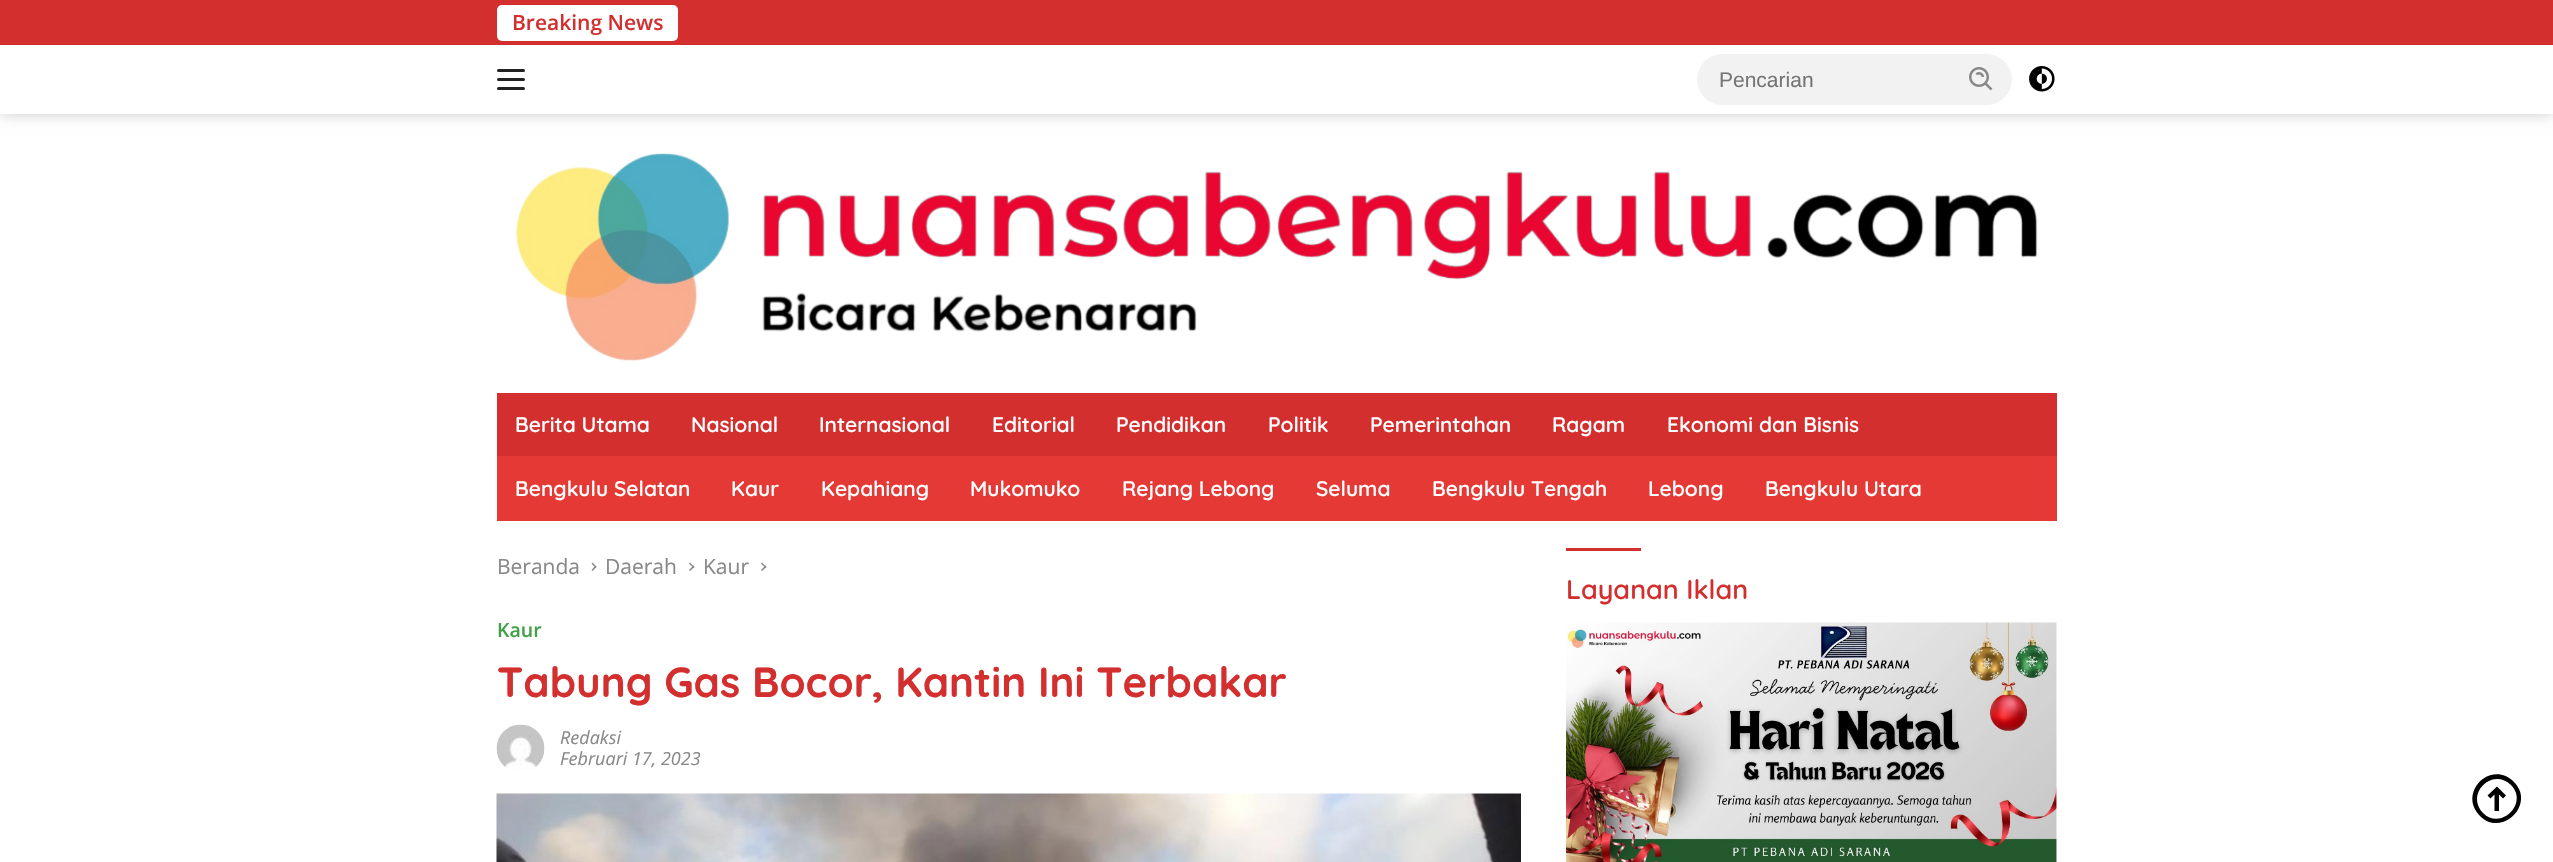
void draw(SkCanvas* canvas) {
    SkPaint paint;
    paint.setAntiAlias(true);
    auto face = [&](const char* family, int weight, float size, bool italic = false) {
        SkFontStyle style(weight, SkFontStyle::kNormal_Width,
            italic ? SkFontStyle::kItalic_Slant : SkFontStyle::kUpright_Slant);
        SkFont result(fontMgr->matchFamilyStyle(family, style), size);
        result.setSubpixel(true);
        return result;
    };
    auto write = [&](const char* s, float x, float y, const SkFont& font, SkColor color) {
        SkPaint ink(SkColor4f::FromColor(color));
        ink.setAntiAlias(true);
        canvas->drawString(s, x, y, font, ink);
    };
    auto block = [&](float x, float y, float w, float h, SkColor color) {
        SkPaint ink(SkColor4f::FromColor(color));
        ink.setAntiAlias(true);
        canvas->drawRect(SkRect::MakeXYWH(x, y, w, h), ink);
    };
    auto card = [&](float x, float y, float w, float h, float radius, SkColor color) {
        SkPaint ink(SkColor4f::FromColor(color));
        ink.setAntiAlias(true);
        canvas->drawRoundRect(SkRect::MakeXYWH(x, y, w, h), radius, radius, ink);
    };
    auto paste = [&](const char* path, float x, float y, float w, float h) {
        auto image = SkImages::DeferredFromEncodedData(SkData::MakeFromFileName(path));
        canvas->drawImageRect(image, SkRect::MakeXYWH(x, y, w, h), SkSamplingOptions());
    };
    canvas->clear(SK_ColorWHITE);
    paint.setColor(SkColorSetARGB(51, 0, 0, 0));
    paint.setMaskFilter(SkMaskFilter::MakeBlur(kNormal_SkBlurStyle, 7.5f));
    canvas->drawRect(SkRect::MakeXYWH(0, 0, 2553, 114), paint);
    paint.setMaskFilter(nullptr);
    block(0, 45, 2553, 69, SK_ColorWHITE);
    block(0, 0, 2553, 45, SkColorSetRGB(211, 47, 47));
    card(497, 5, 181, 36, 5, SK_ColorWHITE);
    auto kFont1 = face("Open Sans", 600, 21);
    write("Breaking News", 512, 30, kFont1, SkColorSetRGB(211, 47, 47));
    card(497, 69, 28, 3, 1.5f, SkColorSetRGB(34, 34, 34));
    card(497, 78, 28, 3, 1.5f, SkColorSetRGB(34, 34, 34));
    card(497, 87, 28, 3, 1.5f, SkColorSetRGB(34, 34, 34));
    card(1697, 54, 315, 51, 25.5f, SkColorSetRGB(242, 242, 242));
    auto kFont2 = face("Liberation Sans", 400, 21);
    write("Pencarian", 1719, 87, kFont2, SkColorSetRGB(117, 117, 117));
    paste("pic1.png", 1969, 67, 24, 24);
    paste("pic2.png", 2029, 66, 26, 26);
    paste("pic3.png", 515, 153, 1523, 208);
    block(497, 456, 1560, 65, SkColorSetRGB(229, 57, 53));
    block(497, 393, 1560, 63, SkColorSetRGB(211, 47, 47));
    auto kFont3 = face("Quicksand", 600, 21);
    write("Berita Utama", 515, 432, kFont3, SK_ColorWHITE);
    write("Nasional", 691, 432, kFont3, SK_ColorWHITE);
    write("Internasional", 819, 432, kFont3, SK_ColorWHITE);
    write("Editorial", 992, 432, kFont3, SK_ColorWHITE);
    write("Pendidikan", 1116, 432, kFont3, SK_ColorWHITE);
    write("Politik", 1268, 432, kFont3, SK_ColorWHITE);
    write("Pemerintahan", 1370, 432, kFont3, SK_ColorWHITE);
    write("Ragam", 1552, 432, kFont3, SK_ColorWHITE);
    write("Ekonomi dan Bisnis", 1667, 432, kFont3, SK_ColorWHITE);
    write("Bengkulu Selatan", 515, 496, kFont3, SK_ColorWHITE);
    write("Kaur", 731, 496, kFont3, SK_ColorWHITE);
    write("Kepahiang", 821, 496, kFont3, SK_ColorWHITE);
    write("Mukomuko", 970, 496, kFont3, SK_ColorWHITE);
    write("Rejang Lebong", 1122, 496, kFont3, SK_ColorWHITE);
    write("Seluma", 1316, 496, kFont3, SK_ColorWHITE);
    write("Bengkulu Tengah", 1432, 496, kFont3, SK_ColorWHITE);
    write("Lebong", 1648, 496, kFont3, SK_ColorWHITE);
    write("Bengkulu Utara", 1765, 496, kFont3, SK_ColorWHITE);
    auto kFont4 = face("Open Sans", 400, 21);
    write("Beranda", 497, 574, kFont4, SkColorSetRGB(136, 136, 136));
    paint.setColor(SkColorSetRGB(136, 136, 136));
    canvas->drawPath(SkPathBuilder().moveTo(591.5f, 563.5f).lineTo(592.5f, 562.5f).lineTo(596.5f, 567).lineTo(595.5f, 568).close().detach(), paint);
    canvas->drawPath(SkPathBuilder().moveTo(591.5f, 570).lineTo(595.5f, 565.5f).lineTo(596.5f, 567).lineTo(592.5f, 571).close().detach(), paint);
    write("Daerah", 605, 574, kFont4, SkColorSetRGB(136, 136, 136));
    canvas->drawPath(SkPathBuilder().moveTo(689, 563.5f).lineTo(690, 562.5f).lineTo(694.5f, 567).lineTo(693.5f, 568).close().detach(), paint);
    canvas->drawPath(SkPathBuilder().moveTo(689, 570).lineTo(693.5f, 565.5f).lineTo(694.5f, 567).lineTo(690, 571).close().detach(), paint);
    write("Kaur", 703, 574, kFont4, SkColorSetRGB(136, 136, 136));
    canvas->drawPath(SkPathBuilder().moveTo(761, 563.5f).lineTo(762, 562.5f).lineTo(766.5f, 567).lineTo(765.5f, 568).close().detach(), paint);
    canvas->drawPath(SkPathBuilder().moveTo(761, 570).lineTo(765.5f, 565.5f).lineTo(766.5f, 567).lineTo(762, 571).close().detach(), paint);
    auto kFont5 = face("Open Sans", 600, 19.5f);
    write("Kaur", 497, 637, kFont5, SkColorSetRGB(67, 160, 71));
    auto kFont6 = face("Quicksand", 700, 42);
    write("Tabung Gas Bocor, Kantin Ini Terbakar", 497, 697, kFont6, SkColorSetRGB(211, 47, 47));
    paste("pic4.png", 496, 724, 49, 45);
    auto kFont7 = face("Open Sans", 400, 18, true);
    write("Redaksi", 560, 744, kFont7, SkColorSetRGB(136, 136, 136));
    write("Februari 17, 2023", 560, 765, kFont7, SkColorSetRGB(136, 136, 136));
    paste("pic5.png", 496, 793, 1025, 69);
    block(1566, 548, 75, 3, SkColorSetRGB(211, 47, 47));
    auto kFont8 = face("Quicksand", 600, 27);
    write("Layanan Iklan", 1566, 599, kFont8, SkColorSetRGB(211, 47, 47));
    paste("pic6.png", 1566, 622, 491, 240);
    paint.setColor(SK_ColorBLACK);
    canvas->drawPath(SkPathBuilder().moveTo(2503, 798.5f).lineTo(2506, 795.5f).lineTo(2497, 786.5f).lineTo(2487.5f, 795.5f).lineTo(2490.5f, 798.5f).lineTo(2494.5f, 794.5f).lineTo(2494.5f, 811).lineTo(2499, 811).lineTo(2499, 794.5f).close().detach(), paint);
    canvas->drawPath(SkPathBuilder(SkPathFillType::kEvenOdd).moveTo(2514, 782).cubicTo(2491, 759, 2457, 793, 2480, 816).cubicTo(2502, 838, 2536, 804, 2514, 782).close().moveTo(2511, 785).cubicTo(2492, 767, 2465, 794, 2483, 813).cubicTo(2501, 831, 2529, 803, 2511, 785).close().detach(), paint);
}
